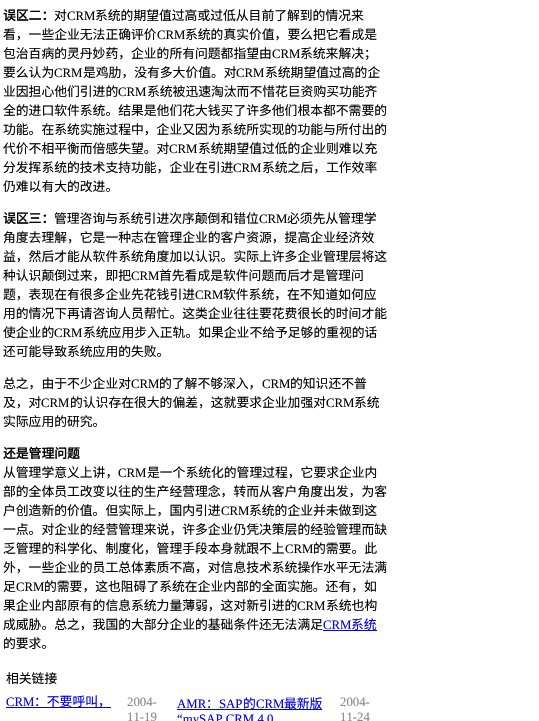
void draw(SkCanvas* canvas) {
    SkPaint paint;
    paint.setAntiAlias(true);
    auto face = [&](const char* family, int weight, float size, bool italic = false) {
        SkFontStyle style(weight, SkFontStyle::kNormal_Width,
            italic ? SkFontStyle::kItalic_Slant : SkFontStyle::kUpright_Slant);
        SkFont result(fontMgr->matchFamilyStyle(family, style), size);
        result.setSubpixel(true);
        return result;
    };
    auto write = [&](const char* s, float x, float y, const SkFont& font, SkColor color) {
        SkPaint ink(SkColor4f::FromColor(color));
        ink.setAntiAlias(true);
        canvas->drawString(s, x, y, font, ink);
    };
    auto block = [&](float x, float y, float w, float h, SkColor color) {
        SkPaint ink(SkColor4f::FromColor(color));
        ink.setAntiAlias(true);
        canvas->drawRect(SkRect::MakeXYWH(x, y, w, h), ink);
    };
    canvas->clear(SK_ColorWHITE);
    auto kFont1 = face("Noto Sans CJK SC", 700, 12.8f);
    write("误区二：", 3, 20, kFont1, SK_ColorBLACK);
    auto kFont2 = face("Noto Sans CJK SC", 400, 12.8f);
    write("对", 54, 20, kFont2, SK_ColorBLACK);
    auto kFont3 = face("Liberation Serif", 400, 12.8f);
    write("CRM", 67, 20, kFont3, SK_ColorBLACK);
    write("系统的期望值过高或过低从目前了解到的情况来", 95, 20, kFont2, SK_ColorBLACK);
    write("看，一些企业无法正确评价", 3, 39, kFont2, SK_ColorBLACK);
    write("CRM", 157, 39, kFont3, SK_ColorBLACK);
    write("系统的真实价值，要么把它看成是", 185, 39, kFont2, SK_ColorBLACK);
    write("包治百病的灵丹妙药，企业的所有问题都指望由", 3, 58, kFont2, SK_ColorBLACK);
    write("CRM", 272, 58, kFont3, SK_ColorBLACK);
    write("系统来解决；", 300, 58, kFont2, SK_ColorBLACK);
    write("要么认为", 3, 77, kFont2, SK_ColorBLACK);
    write("CRM", 54, 77, kFont3, SK_ColorBLACK);
    write("是鸡肋，没有多大价值。对", 83, 77, kFont2, SK_ColorBLACK);
    write("CRM", 236, 77, kFont3, SK_ColorBLACK);
    write("系统期望值过高的企", 265, 77, kFont2, SK_ColorBLACK);
    write("业因担心他们引进的", 3, 96, kFont2, SK_ColorBLACK);
    write("CRM", 118, 96, kFont3, SK_ColorBLACK);
    write("系统被迅速淘汰而不惜花巨资购买功能齐", 147, 96, kFont2, SK_ColorBLACK);
    write("全的进口软件系统。结果是他们花大钱买了许多他们根本都不需要的", 3, 115, kFont2, SK_ColorBLACK);
    write("功能。在系统实施过程中，企业又因为系统所实现的功能与所付出的", 3, 134, kFont2, SK_ColorBLACK);
    write("代价不相平衡而倍感失望。对", 3, 153, kFont2, SK_ColorBLACK);
    write("CRM", 169, 153, kFont3, SK_ColorBLACK);
    write("系统期望值过低的企业则难以充", 198, 153, kFont2, SK_ColorBLACK);
    write("分发挥系统的技术支持功能，企业在引进", 3, 172, kFont2, SK_ColorBLACK);
    write("CRM", 233, 172, kFont3, SK_ColorBLACK);
    write("系统之后，工作效率", 262, 172, kFont2, SK_ColorBLACK);
    write("仍难以有大的改进。", 3, 191, kFont2, SK_ColorBLACK);
    write("误区三：", 3, 223, kFont1, SK_ColorBLACK);
    write("管理咨询与系统引进次序颠倒和错位", 54, 223, kFont2, SK_ColorBLACK);
    write("CRM", 259, 223, kFont3, SK_ColorBLACK);
    write("必须先从管理学", 287, 223, kFont2, SK_ColorBLACK);
    write("角度去理解，它是一种志在管理企业的客户资源，提高企业经济效", 3, 242, kFont2, SK_ColorBLACK);
    write("益，然后才能从软件系统角度加以认识。实际上许多企业管理层将这", 3, 261, kFont2, SK_ColorBLACK);
    write("种认识颠倒过来，即把", 3, 280, kFont2, SK_ColorBLACK);
    write("CRM", 131, 280, kFont3, SK_ColorBLACK);
    write("首先看成是软件问题而后才是管理问", 159, 280, kFont2, SK_ColorBLACK);
    write("题，表现在有很多企业先花钱引进", 3, 299, kFont2, SK_ColorBLACK);
    write("CRM", 195, 299, kFont3, SK_ColorBLACK);
    write("软件系统，在不知道如何应", 223, 299, kFont2, SK_ColorBLACK);
    write("用的情况下再请咨询人员帮忙。这类企业往往要花费很长的时间才能", 3, 318, kFont2, SK_ColorBLACK);
    write("使企业的", 3, 337, kFont2, SK_ColorBLACK);
    write("CRM", 54, 337, kFont3, SK_ColorBLACK);
    write("系统应用步入正轨。如果企业不给予足够的重视的话", 83, 337, kFont2, SK_ColorBLACK);
    write("还可能导致系统应用的失败。", 3, 356, kFont2, SK_ColorBLACK);
    write("总之，由于不少企业对", 3, 388, kFont2, SK_ColorBLACK);
    write("CRM", 131, 388, kFont3, SK_ColorBLACK);
    write("的了解不够深入，", 159, 388, kFont2, SK_ColorBLACK);
    write("CRM", 262, 388, kFont3, SK_ColorBLACK);
    write("的知识还不普", 290, 388, kFont2, SK_ColorBLACK);
    write("及，对", 3, 407, kFont2, SK_ColorBLACK);
    write("CRM", 41, 407, kFont3, SK_ColorBLACK);
    write("的认识存在很大的偏差，这就要求企业加强对", 70, 407, kFont2, SK_ColorBLACK);
    write("CRM", 326, 407, kFont3, SK_ColorBLACK);
    write("系统", 354, 407, kFont2, SK_ColorBLACK);
    write("实际应用的研究。", 3, 426, kFont2, SK_ColorBLACK);
    write("还是管理问题", 3, 458, kFont1, SK_ColorBLACK);
    write("从管理学意义上讲，", 3, 477, kFont2, SK_ColorBLACK);
    write("CRM", 118, 477, kFont3, SK_ColorBLACK);
    write("是一个系统化的管理过程，它要求企业内", 147, 477, kFont2, SK_ColorBLACK);
    write("部的全体员工改变以往的生产经营理念，转而从客户角度出发，为客", 3, 496, kFont2, SK_ColorBLACK);
    write("户创造新的价值。但实际上，国内引进", 3, 515, kFont2, SK_ColorBLACK);
    write("CRM", 221, 515, kFont3, SK_ColorBLACK);
    write("系统的企业并未做到这", 249, 515, kFont2, SK_ColorBLACK);
    write("一点。对企业的经营管理来说，许多企业仍凭决策层的经验管理而缺", 3, 534, kFont2, SK_ColorBLACK);
    write("乏管理的科学化、制度化，管理手段本身就跟不上", 3, 553, kFont2, SK_ColorBLACK);
    write("CRM", 285, 553, kFont3, SK_ColorBLACK);
    write("的需要。此", 313, 553, kFont2, SK_ColorBLACK);
    write("外，一些企业的员工总体素质不高，对信息技术系统操作水平无法满", 3, 572, kFont2, SK_ColorBLACK);
    write("足", 3, 591, kFont2, SK_ColorBLACK);
    write("CRM", 16, 591, kFont3, SK_ColorBLACK);
    write("的需要，这也阻碍了系统在企业内部的全面实施。还有，如", 44, 591, kFont2, SK_ColorBLACK);
    write("果企业内部原有的信息系统力量薄弱，这对新引进的", 3, 610, kFont2, SK_ColorBLACK);
    write("CRM", 297, 610, kFont3, SK_ColorBLACK);
    write("系统也构", 326, 610, kFont2, SK_ColorBLACK);
    write("成威胁。总之，我国的大部分企业的基础条件还无法满足", 3, 629, kFont2, SK_ColorBLACK);
    write("CRM", 323, 629, kFont3, SkColorSetRGB(0, 0, 238));
    block(323, 630, 54, 1, SkColorSetRGB(0, 0, 238));
    write("系统", 351, 629, kFont2, SkColorSetRGB(0, 0, 238));
    write("的要求。", 3, 648, kFont2, SK_ColorBLACK);
    write("相关链接", 6, 683, kFont2, SK_ColorBLACK);
    write("CRM", 6, 706, kFont3, SkColorSetRGB(0, 0, 238));
    block(6, 707, 105, 1, SkColorSetRGB(0, 0, 238));
    write("：不要呼叫，", 34, 706, kFont2, SkColorSetRGB(0, 0, 238));
    write("2004-", 127, 706, kFont3, SkColorSetRGB(136, 136, 136));
    write("11-19", 127, 721, kFont3, SkColorSetRGB(136, 136, 136));
    write("AMR", 177, 708, kFont3, SkColorSetRGB(0, 0, 238));
    write("：", 206, 708, kFont2, SkColorSetRGB(0, 0, 238));
    block(177, 709, 145, 1, SkColorSetRGB(0, 0, 238));
    write("SAP", 219, 708, kFont3, SkColorSetRGB(0, 0, 238));
    write("的", 243, 708, kFont2, SkColorSetRGB(0, 0, 238));
    write("CRM", 256, 708, kFont3, SkColorSetRGB(0, 0, 238));
    write("最新版", 284, 708, kFont2, SkColorSetRGB(0, 0, 238));
    write("“mySAP CRM 4.0", 177, 723, kFont3, SkColorSetRGB(0, 0, 238));
    write("2004-", 340, 706, kFont3, SkColorSetRGB(136, 136, 136));
    write("11-24", 340, 721, kFont3, SkColorSetRGB(136, 136, 136));
}
